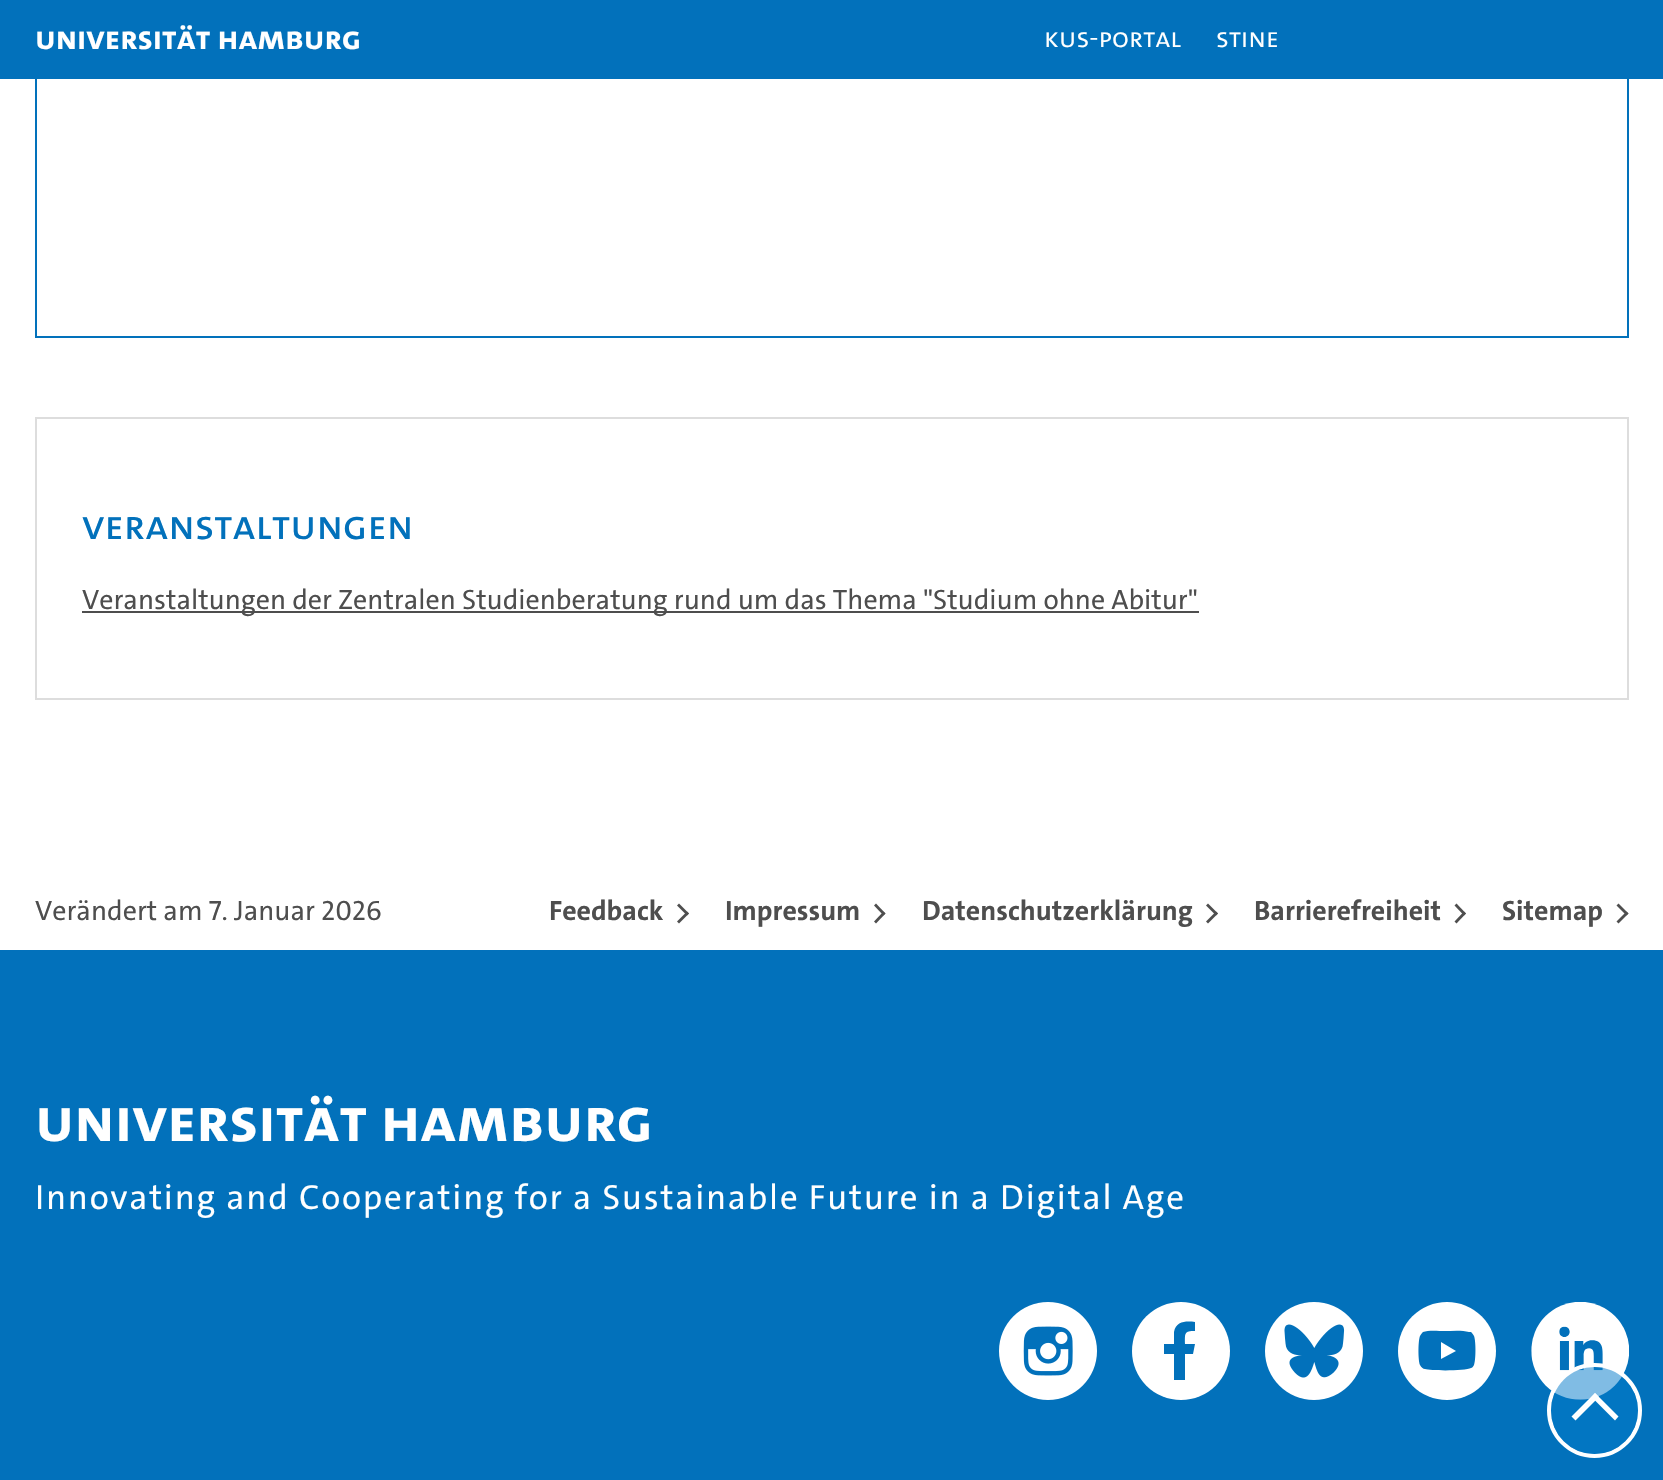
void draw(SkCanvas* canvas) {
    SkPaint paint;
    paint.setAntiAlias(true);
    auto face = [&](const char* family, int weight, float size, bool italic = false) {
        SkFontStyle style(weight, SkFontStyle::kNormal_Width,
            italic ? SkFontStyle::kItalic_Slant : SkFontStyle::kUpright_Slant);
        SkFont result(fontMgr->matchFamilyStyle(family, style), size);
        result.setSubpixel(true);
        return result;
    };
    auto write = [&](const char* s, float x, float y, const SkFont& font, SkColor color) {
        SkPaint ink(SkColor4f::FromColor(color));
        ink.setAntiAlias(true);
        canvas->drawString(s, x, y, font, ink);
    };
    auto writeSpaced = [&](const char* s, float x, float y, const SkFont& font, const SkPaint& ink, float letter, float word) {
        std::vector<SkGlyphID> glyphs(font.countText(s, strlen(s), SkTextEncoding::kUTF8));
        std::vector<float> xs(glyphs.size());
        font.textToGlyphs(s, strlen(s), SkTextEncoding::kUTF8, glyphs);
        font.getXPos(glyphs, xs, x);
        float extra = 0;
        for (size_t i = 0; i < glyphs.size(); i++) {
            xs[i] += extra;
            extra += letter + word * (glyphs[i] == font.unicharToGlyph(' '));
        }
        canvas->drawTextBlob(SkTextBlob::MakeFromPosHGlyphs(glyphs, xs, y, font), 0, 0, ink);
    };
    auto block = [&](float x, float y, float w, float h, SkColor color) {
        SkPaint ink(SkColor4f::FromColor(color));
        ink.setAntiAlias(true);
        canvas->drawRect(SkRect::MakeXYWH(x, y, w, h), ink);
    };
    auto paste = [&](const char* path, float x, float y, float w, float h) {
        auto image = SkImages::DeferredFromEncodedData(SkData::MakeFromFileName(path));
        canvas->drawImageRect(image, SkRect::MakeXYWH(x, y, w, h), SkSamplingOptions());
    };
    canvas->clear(SK_ColorWHITE);
    paint.setStyle(SkPaint::kStroke_Style);
    paint.setStrokeWidth(2);
    paint.setColor(SkColorSetRGB(2, 113, 187));
    canvas->drawRect(SkRect::MakeXYWH(36, -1, 1592, 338), paint);
    block(0, 0, 1663, 79, SkColorSetRGB(2, 113, 187));
    auto kFont1 = face("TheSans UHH", 700, 33.25f);
    write("Universität Hamburg", 35, 49, kFont1, SK_ColorWHITE);
    auto kFont2 = face("TheSans UHH", 300, 28);
    write("KUS-Portal", 1044, 47, kFont2, SK_ColorWHITE);
    write("STiNE", 1216, 47, kFont2, SK_ColorWHITE);
    paint.setColor(SkColorSetRGB(221, 221, 221));
    canvas->drawRect(SkRect::MakeXYWH(36, 418, 1592, 281), paint);
    auto kFont3 = face("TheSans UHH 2", 400, 42);
    write("Veranstaltungen", 82, 539, kFont3, SkColorSetRGB(2, 113, 187));
    block(82, 611, 1117, 2, SkColorSetRGB(78, 78, 78));
    auto kFont4 = face("TheSans UHH", 400, 28);
    write("Veranstaltungen der Zentralen Studienberatung rund um das Thema \"Studium ohne Abitur\"", 82, 609, kFont4, SkColorSetRGB(78, 78, 78));
    write("Verändert am 7. Januar 2026", 35, 920, kFont4, SkColorSetRGB(78, 78, 78));
    auto kFont5 = face("TheSans UHH 2", 700, 28);
    write("Feedback", 549, 920, kFont5, SkColorSetRGB(78, 78, 78));
    paint.setStyle(SkPaint::kFill_Style);
    paint.setColor(SkColorSetRGB(78, 78, 78));
    canvas->drawPath(SkPathBuilder().moveTo(679, 903.5f).lineTo(689, 913.5f).lineTo(687, 915.5f).lineTo(677, 905.5f).close().detach(), paint);
    canvas->drawPath(SkPathBuilder().moveTo(687, 911.5f).lineTo(689, 913.5f).lineTo(679, 923.5f).lineTo(677, 921.5f).close().detach(), paint);
    write("Impressum", 725, 920, kFont5, SkColorSetRGB(78, 78, 78));
    canvas->drawPath(SkPathBuilder().moveTo(876, 903.5f).lineTo(885.5f, 913.5f).lineTo(883.5f, 915.5f).lineTo(874, 905.5f).close().detach(), paint);
    canvas->drawPath(SkPathBuilder().moveTo(883.5f, 911.5f).lineTo(885.5f, 913.5f).lineTo(876, 923.5f).lineTo(874, 921.5f).close().detach(), paint);
    write("Datenschutzerklärung", 922, 920, kFont5, SkColorSetRGB(78, 78, 78));
    canvas->drawPath(SkPathBuilder().moveTo(1208, 903.5f).lineTo(1218, 913.5f).lineTo(1216, 915.5f).lineTo(1206, 905.5f).close().detach(), paint);
    canvas->drawPath(SkPathBuilder().moveTo(1216, 911.5f).lineTo(1218, 913.5f).lineTo(1208, 923.5f).lineTo(1206, 921.5f).close().detach(), paint);
    write("Barrierefreiheit", 1254, 920, kFont5, SkColorSetRGB(78, 78, 78));
    canvas->drawPath(SkPathBuilder().moveTo(1456.5f, 903.5f).lineTo(1466, 913.5f).lineTo(1464, 915.5f).lineTo(1454.5f, 905.5f).close().detach(), paint);
    canvas->drawPath(SkPathBuilder().moveTo(1464, 911.5f).lineTo(1466, 913.5f).lineTo(1456.5f, 923.5f).lineTo(1454.5f, 921.5f).close().detach(), paint);
    write("Sitemap", 1502, 920, kFont5, SkColorSetRGB(78, 78, 78));
    canvas->drawPath(SkPathBuilder().moveTo(1618.5f, 903.5f).lineTo(1628.5f, 913.5f).lineTo(1626.5f, 915.5f).lineTo(1616.5f, 905.5f).close().detach(), paint);
    canvas->drawPath(SkPathBuilder().moveTo(1626.5f, 911.5f).lineTo(1628.5f, 913.5f).lineTo(1618.5f, 923.5f).lineTo(1616.5f, 921.5f).close().detach(), paint);
    block(0, 950, 1663, 530, SkColorSetRGB(2, 113, 187));
    auto kFont6 = face("TheSans UHH", 700, 63);
    write("Universität Hamburg", 35, 1141, kFont6, SK_ColorWHITE);
    auto kFont7 = face("TheSans UHH", 400, 35);
    paint.setColor(SK_ColorWHITE);
    writeSpaced("Innovating and Cooperating for a Sustainable Future in a Digital Age", 35, 1209, kFont7, paint, 1.75f, 0);
    paste("pic1.png", 999, 1302, 98, 98);
    canvas->drawCircle(1181, 1351, 49, paint);
    paint.setColor(SkColorSetRGB(2, 113, 187));
    canvas->drawPath(SkPathBuilder().moveTo(1193, 1354).lineTo(1195, 1344).lineTo(1185, 1344).cubicTo(1185, 1333, 1184, 1331, 1195, 1331).lineTo(1195, 1322).cubicTo(1186, 1321, 1176, 1321, 1174, 1332).lineTo(1174, 1344).lineTo(1164, 1344).lineTo(1164, 1354).lineTo(1174, 1354).lineTo(1174, 1380).lineTo(1185, 1380).lineTo(1185, 1354).close().detach(), paint);
    paste("pic2.png", 1265, 1302, 98, 98);
    paint.setColor(SK_ColorWHITE);
    canvas->drawCircle(1447, 1351, 49, paint);
    paint.setColor(SkColorSetRGB(2, 113, 187));
    canvas->drawPath(SkPathBuilder(SkPathFillType::kEvenOdd).moveTo(1469, 1332).lineTo(1471, 1332).cubicTo(1472, 1333, 1473, 1334, 1474, 1336).cubicTo(1476, 1341, 1476, 1360, 1474, 1365).cubicTo(1473, 1367, 1472, 1368, 1471, 1368).cubicTo(1466, 1371, 1431, 1371, 1425, 1369).cubicTo(1423, 1369, 1421, 1367, 1420, 1365).cubicTo(1418, 1360, 1418, 1341, 1420, 1336).cubicTo(1421, 1334, 1422, 1333, 1423, 1332).cubicTo(1428, 1330, 1439, 1331, 1444, 1331).cubicTo(1452, 1331, 1462, 1330, 1469, 1332).close().moveTo(1441, 1342).lineTo(1441, 1359).lineTo(1456, 1351).close().detach(), paint);
    paste("pic3.png", 1531, 1302, 98, 98);
    paint.setStyle(SkPaint::kStroke_Style);
    paint.setStrokeWidth(4);
    paint.setColor(SK_ColorWHITE);
    canvas->drawCircle(1594.5f, 1410.5f, 45.5f, paint);
    paint.setStyle(SkPaint::kFill_Style);
    paint.setColor(SkColorSetARGB(128, 2, 122, 202));
    canvas->drawCircle(1594.5f, 1410.5f, 43.5f, paint);
    paint.setColor(SK_ColorWHITE);
    canvas->drawPath(SkPathBuilder().moveTo(1571.5f, 1416.5f).lineTo(1595, 1393).lineTo(1599, 1397).lineTo(1575.5f, 1420.5f).close().detach(), paint);
    canvas->drawPath(SkPathBuilder().moveTo(1591.5f, 1397).lineTo(1595, 1393).lineTo(1618.5f, 1416.5f).lineTo(1615, 1420.5f).close().detach(), paint);
}
